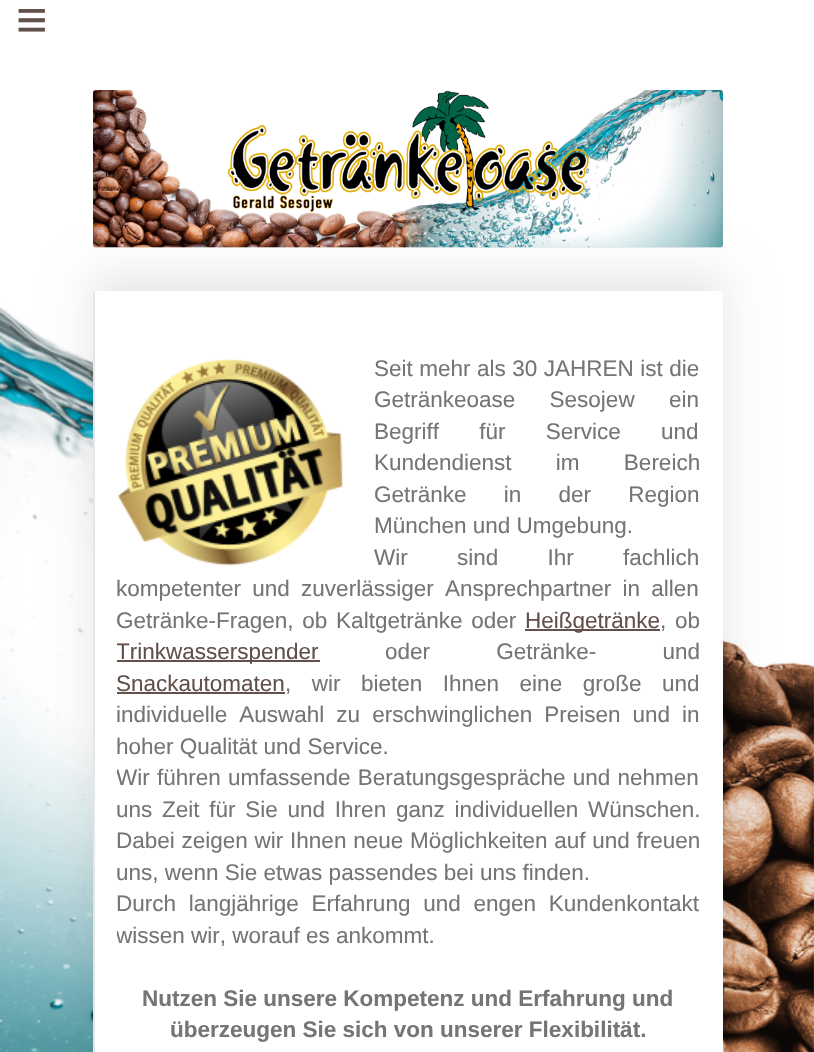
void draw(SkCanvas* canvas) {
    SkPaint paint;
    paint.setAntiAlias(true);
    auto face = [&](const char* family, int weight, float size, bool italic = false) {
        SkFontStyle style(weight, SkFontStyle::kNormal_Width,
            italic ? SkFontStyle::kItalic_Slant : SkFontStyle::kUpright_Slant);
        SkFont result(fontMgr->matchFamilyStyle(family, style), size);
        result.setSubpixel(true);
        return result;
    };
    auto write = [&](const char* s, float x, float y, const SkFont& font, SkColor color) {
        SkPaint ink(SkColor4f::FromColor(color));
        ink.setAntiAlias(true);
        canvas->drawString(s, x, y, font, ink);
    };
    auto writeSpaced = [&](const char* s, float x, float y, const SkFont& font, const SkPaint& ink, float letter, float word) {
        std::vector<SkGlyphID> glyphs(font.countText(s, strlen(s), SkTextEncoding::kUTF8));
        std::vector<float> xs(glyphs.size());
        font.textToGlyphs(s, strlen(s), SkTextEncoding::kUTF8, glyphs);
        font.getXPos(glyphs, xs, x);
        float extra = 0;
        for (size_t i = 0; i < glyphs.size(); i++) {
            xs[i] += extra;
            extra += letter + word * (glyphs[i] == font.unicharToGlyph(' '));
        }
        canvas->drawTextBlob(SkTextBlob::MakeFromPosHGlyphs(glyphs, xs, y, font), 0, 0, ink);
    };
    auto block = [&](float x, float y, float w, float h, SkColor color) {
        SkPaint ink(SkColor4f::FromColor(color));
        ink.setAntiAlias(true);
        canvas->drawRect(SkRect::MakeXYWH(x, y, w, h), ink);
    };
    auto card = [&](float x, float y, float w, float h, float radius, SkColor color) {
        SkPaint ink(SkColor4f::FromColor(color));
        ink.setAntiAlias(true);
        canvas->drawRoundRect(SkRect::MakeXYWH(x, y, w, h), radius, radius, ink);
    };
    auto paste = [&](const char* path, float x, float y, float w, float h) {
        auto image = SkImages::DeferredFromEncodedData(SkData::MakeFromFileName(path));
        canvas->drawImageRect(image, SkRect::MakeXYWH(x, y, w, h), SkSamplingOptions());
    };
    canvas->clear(SK_ColorWHITE);
    paste("pic1.png", 0, 0, 814, 1052);
    auto kFont1 = face("Liberation Sans", 400, 54);
    paint.setColor(SkColorSetRGB(99, 80, 75));
    writeSpaced("≡", 16, 38, kFont1, paint, 16, 0);
    canvas->save();
    canvas->clipRect(SkRect::MakeXYWH(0, 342, 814, 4));
    paint.setColor(SkColorSetARGB(26, 255, 255, 255));
    paint.setMaskFilter(SkMaskFilter::MakeBlur(kNormal_SkBlurStyle, 1));
    canvas->drawRect(SkRect::MakeXYWH(0, 62, 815, 283), paint);
    paint.setMaskFilter(nullptr);
    canvas->restore();
    card(93, 90, 630, 158, 3, SkColorSetRGB(238, 238, 238));
    paste("pic2.png", 93, 90, 630, 158);
    paint.setColor(SkColorSetARGB(26, 0, 0, 0));
    paint.setMaskFilter(SkMaskFilter::MakeBlur(kNormal_SkBlurStyle, 22.5f));
    canvas->drawRoundRect(SkRect::MakeXYWH(93, 276, 630, 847), 3, 3, paint);
    paint.setMaskFilter(nullptr);
    card(93, 291, 630, 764, 3, SK_ColorWHITE);
    block(93, 291, 2, 761, SkColorSetRGB(230, 230, 230));
    paste("pic3.png", 118, 358, 226, 208);
    auto kFont2 = face("Liberation Sans", 400, 22.5f);
    paint.setColor(SkColorSetRGB(117, 117, 117));
    writeSpaced("Seit mehr als 30 JAHREN ist die", 374, 376, kFont2, paint, 0, 0.25f);
    writeSpaced("Getränkeoase Sesojew ein", 374, 407, kFont2, paint, 0, 28);
    writeSpaced("Begriff für Service und", 374, 439, kFont2, paint, 0, 34);
    writeSpaced("Kundendienst im Bereich", 374, 470, kFont2, paint, 0, 38);
    writeSpaced("Getränke in der Region", 374, 502, kFont2, paint, 0, 31);
    write("München und Umgebung.", 374, 533, kFont2, SkColorSetRGB(117, 117, 117));
    writeSpaced("Wir sind Ihr fachlich", 374, 565, kFont2, paint, 0, 43);
    writeSpaced("kompetenter und zuverlässiger Ansprechpartner in allen", 116, 596, kFont2, paint, 0, 5);
    writeSpaced("Getränke-Fragen, ob Kaltgetränke oder", 116, 628, kFont2, paint, 0, 2.5f);
    block(525, 629, 135, 2, SkColorSetRGB(99, 80, 75));
    write("Heißgetränke", 525, 628, kFont2, SkColorSetRGB(99, 80, 75));
    writeSpaced(", ob", 660, 628, kFont2, paint, 0, 2.5f);
    block(117, 660, 203, 2, SkColorSetRGB(99, 80, 75));
    canvas->save();
    canvas->clipRect(SkRect::MakeXYWH(117, 351, 584, 693));
    write("Trinkwasserspender", 116, 659, kFont2, SkColorSetRGB(99, 80, 75));
    canvas->restore();
    writeSpaced("oder Getränke- und", 385, 659, kFont2, paint, 0, 60);
    write("Snackautomaten", 116, 691, kFont2, SkColorSetRGB(99, 80, 75));
    block(117, 692, 168, 2, SkColorSetRGB(99, 80, 75));
    writeSpaced(", wir bieten Ihnen eine große und", 285, 691, kFont2, paint, 0, 14.25f);
    writeSpaced("individuelle Auswahl zu erschwinglichen Preisen und in", 116, 722, kFont2, paint, 0, 5.75f);
    write("hoher Qualität und Service.", 116, 754, kFont2, SkColorSetRGB(117, 117, 117));
    canvas->save();
    canvas->clipRect(SkRect::MakeXYWH(117, 351, 584, 693));
    writeSpaced("Wir führen umfassende Beratungsgespräche und nehmen", 116, 785, kFont2, paint, 0, 1);
    canvas->restore();
    writeSpaced("uns Zeit für Sie und Ihren ganz individuellen Wünschen.", 116, 817, kFont2, paint, 0, 3.5f);
    writeSpaced("Dabei zeigen wir Ihnen neue Möglichkeiten auf und freuen", 116, 848, kFont2, paint, 0, 0.5f);
    write("uns, wenn Sie etwas passendes bei uns finden.", 116, 880, kFont2, SkColorSetRGB(117, 117, 117));
    writeSpaced("Durch langjährige Erfahrung und engen Kundenkontakt", 116, 911, kFont2, paint, 0, 6.5f);
    canvas->save();
    canvas->clipRect(SkRect::MakeXYWH(117, 351, 584, 693));
    write("wissen wir, worauf es ankommt.", 116, 943, kFont2, SkColorSetRGB(117, 117, 117));
    canvas->restore();
    auto kFont3 = face("Liberation Sans", 700, 22.5f);
    write("Nutzen Sie unsere Kompetenz und Erfahrung und", 142, 1006, kFont3, SkColorSetRGB(117, 117, 117));
    write("überzeugen Sie sich von unserer Flexibilität.", 170, 1037, kFont3, SkColorSetRGB(117, 117, 117));
}
